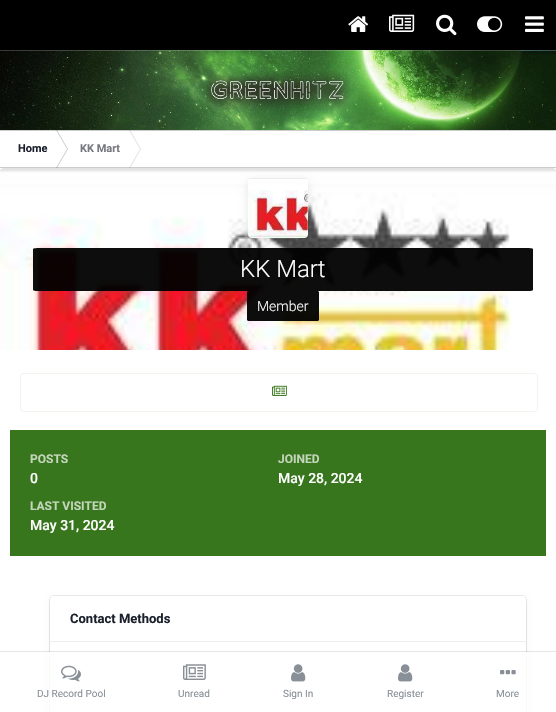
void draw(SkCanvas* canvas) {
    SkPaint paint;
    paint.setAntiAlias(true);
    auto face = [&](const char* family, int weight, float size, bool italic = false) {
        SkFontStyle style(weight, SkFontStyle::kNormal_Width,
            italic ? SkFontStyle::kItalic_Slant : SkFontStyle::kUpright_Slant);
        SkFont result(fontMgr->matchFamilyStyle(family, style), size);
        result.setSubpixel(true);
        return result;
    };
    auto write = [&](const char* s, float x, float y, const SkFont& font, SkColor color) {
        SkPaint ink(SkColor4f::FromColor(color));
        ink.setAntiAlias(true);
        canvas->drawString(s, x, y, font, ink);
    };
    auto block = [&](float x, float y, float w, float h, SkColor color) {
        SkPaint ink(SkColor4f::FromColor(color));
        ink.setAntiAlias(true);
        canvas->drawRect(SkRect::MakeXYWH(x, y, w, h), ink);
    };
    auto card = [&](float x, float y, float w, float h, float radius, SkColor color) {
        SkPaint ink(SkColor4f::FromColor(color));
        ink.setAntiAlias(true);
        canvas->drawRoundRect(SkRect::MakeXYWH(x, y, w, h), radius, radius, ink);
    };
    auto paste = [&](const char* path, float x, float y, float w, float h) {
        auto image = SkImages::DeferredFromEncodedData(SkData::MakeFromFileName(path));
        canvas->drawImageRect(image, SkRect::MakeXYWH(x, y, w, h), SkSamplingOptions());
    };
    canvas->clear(SK_ColorBLACK);
    paste("pic6.png", 0, 50, 556, 80);
    block(0, 50, 556, 1, SkColorSetARGB(51, 255, 255, 255));
    paste("pic1.png", 348, 16, 21, 16);
    paste("pic2.png", 389, 14, 26, 18);
    paste("pic3.png", 436, 14, 21, 22);
    paste("pic4.png", 477, 16, 26, 16);
    paste("pic5.png", 525, 16, 19, 16);
    paste("pic7.png", 206, 71, 144, 40);
    block(0, 130, 556, 582, SK_ColorWHITE);
    paint.setColor(SkColorSetRGB(204, 204, 204));
    canvas->drawPath(SkPathBuilder().moveTo(56, 130).lineTo(57, 130).lineTo(68, 149).lineTo(67, 149).close().moveTo(56, 168).lineTo(57, 168).lineTo(68, 149).lineTo(67, 149).close().detach(), paint);
    paint.setColor(SkColorSetRGB(224, 224, 224));
    canvas->drawPath(SkPathBuilder().moveTo(129, 130).lineTo(130, 130).lineTo(141, 149).lineTo(140, 149).close().moveTo(129, 168).lineTo(130, 168).lineTo(141, 149).lineTo(140, 149).close().detach(), paint);
    block(0, 130, 556, 1, SkColorSetARGB(51, 0, 0, 0));
    block(0, 167, 556, 1, SkColorSetARGB(51, 0, 0, 0));
    auto kFont1 = face("Roboto", 700, 11);
    write("Home", 18, 152, kFont1, SkColorSetRGB(26, 32, 44));
    write("KK Mart", 80, 152, kFont1, SkColorSetRGB(118, 121, 128));
    paste("pic8.png", 0, 168, 556, 182);
    paste("pic9.png", 248, 178, 60, 60);
    paint.setColor(SkColorSetARGB(242, 0, 0, 0));
    canvas->drawPath(SkPathBuilder().moveTo(43, 248).lineTo(523, 248).cubicTo(529, 248, 533, 248, 533, 249).lineTo(533, 290).cubicTo(533, 291, 529, 291, 523, 291).lineTo(43, 291).cubicTo(37, 291, 33, 291, 33, 290).lineTo(33, 249).cubicTo(33, 248, 37, 248, 43, 248).close().detach(), paint);
    canvas->save();
    canvas->clipPath(SkPathBuilder(SkPathFillType::kEvenOdd).moveTo(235, 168).lineTo(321, 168).lineTo(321, 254).lineTo(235, 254).close().moveTo(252, 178).lineTo(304, 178).cubicTo(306, 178, 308, 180, 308, 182).lineTo(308, 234).cubicTo(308, 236, 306, 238, 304, 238).lineTo(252, 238).cubicTo(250, 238, 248, 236, 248, 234).lineTo(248, 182).cubicTo(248, 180, 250, 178, 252, 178).close().detach(), true);
    paint.setColor(SkColorSetARGB(26, 0, 0, 0));
    paint.setMaskFilter(SkMaskFilter::MakeBlur(kNormal_SkBlurStyle, 4));
    canvas->drawRoundRect(SkRect::MakeXYWH(248, 181, 60, 60), 4, 4, paint);
    paint.setMaskFilter(nullptr);
    canvas->restore();
    paint.setStyle(SkPaint::kStroke_Style);
    paint.setStrokeWidth(1);
    paint.setColor(SkColorSetARGB(77, 255, 255, 255));
    canvas->drawRoundRect(SkRect::MakeXYWH(248.5f, 178.5f, 59, 59), 3.5f, 3.5f, paint);
    auto kFont2 = face("Roboto", 300, 24);
    write("KK Mart", 240, 277, kFont2, SK_ColorWHITE);
    paint.setStyle(SkPaint::kFill_Style);
    paint.setColor(SkColorSetARGB(242, 0, 0, 0));
    canvas->drawPath(SkPathBuilder().moveTo(248, 291).lineTo(318, 291).lineTo(319, 292).lineTo(319, 320).lineTo(318, 321).lineTo(248, 321).lineTo(247, 320).lineTo(247, 292).close().detach(), paint);
    auto kFont3 = face("Roboto", 300, 14);
    write("Member", 257, 311, kFont3, SK_ColorWHITE);
    paint.setStyle(SkPaint::kStroke_Style);
    paint.setColor(SkColorSetRGB(240, 245, 238));
    canvas->drawRoundRect(SkRect::MakeXYWH(20.5f, 373.5f, 517, 38), 3.5f, 3.5f, paint);
    paste("pic10.png", 272, 385, 15, 11);
    block(10, 430, 536, 126, SkColorSetRGB(56, 118, 29));
    auto kFont4 = face("Roboto", 700, 12);
    write("POSTS", 30, 463, kFont4, SkColorSetRGB(195, 214, 187));
    auto kFont5 = face("Roboto", 500, 14);
    write("0", 30, 483, kFont5, SK_ColorWHITE);
    write("JOINED", 278, 463, kFont4, SkColorSetRGB(195, 214, 187));
    write("May 28, 2024", 278, 483, kFont5, SK_ColorWHITE);
    write("LAST VISITED", 30, 510, kFont4, SkColorSetRGB(195, 214, 187));
    write("May 31, 2024", 30, 530, kFont5, SK_ColorWHITE);
    paint.setStyle(SkPaint::kFill_Style);
    paint.setColor(SkColorSetARGB(20, 0, 0, 0));
    paint.setMaskFilter(SkMaskFilter::MakeBlur(kNormal_SkBlurStyle, 3));
    canvas->drawRoundRect(SkRect::MakeXYWH(51, 600, 474, 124), 3, 3, paint);
    paint.setMaskFilter(nullptr);
    paint.setStyle(SkPaint::kStroke_Style);
    paint.setColor(SkColorSetARGB(51, 137, 143, 151));
    canvas->drawRoundRect(SkRect::MakeXYWH(49.5f, 595.5f, 477, 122), 4.5f, 4.5f, paint);
    card(50, 596, 476, 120, 4, SkColorSetRGB(254, 255, 254));
    paint.setStyle(SkPaint::kFill_Style);
    paint.setColor(SkColorSetRGB(254, 255, 254));
    canvas->drawPath(SkPathBuilder().moveTo(54, 596).lineTo(522, 596).cubicTo(524, 596, 526, 598, 526, 600).lineTo(526, 642).lineTo(50, 642).lineTo(50, 600).cubicTo(50, 598, 52, 596, 54, 596).close().detach(), paint);
    block(50, 641, 476, 1, SkColorSetRGB(236, 238, 239));
    auto kFont6 = face("Roboto", 700, 13);
    write("Contact Methods", 70, 623, kFont6, SkColorSetRGB(26, 32, 44));
    block(0, 651, 556, 1, SkColorSetARGB(26, 0, 0, 0));
    block(48, 652, 480, 60, SkColorSetARGB(204, 254, 255, 254));
    paste("pic11.png", 61, 665, 20, 17);
    auto kFont7 = face("Roboto", 400, 10);
    write("DJ Record Pool", 37, 697, kFont7, SkColorSetRGB(137, 143, 151));
    paste("pic12.png", 183, 664, 23, 16);
    write("Unread", 178, 697, kFont7, SkColorSetRGB(137, 143, 151));
    paste("pic13.png", 291, 664, 15, 18);
    write("Sign In", 283, 697, kFont7, SkColorSetRGB(137, 143, 151));
    paste("pic13.png", 398, 664, 15, 18);
    write("Register", 387, 697, kFont7, SkColorSetRGB(137, 143, 151));
    paste("pic14.png", 500, 670, 16, 5);
    write("More", 496, 697, kFont7, SkColorSetRGB(137, 143, 151));
}
